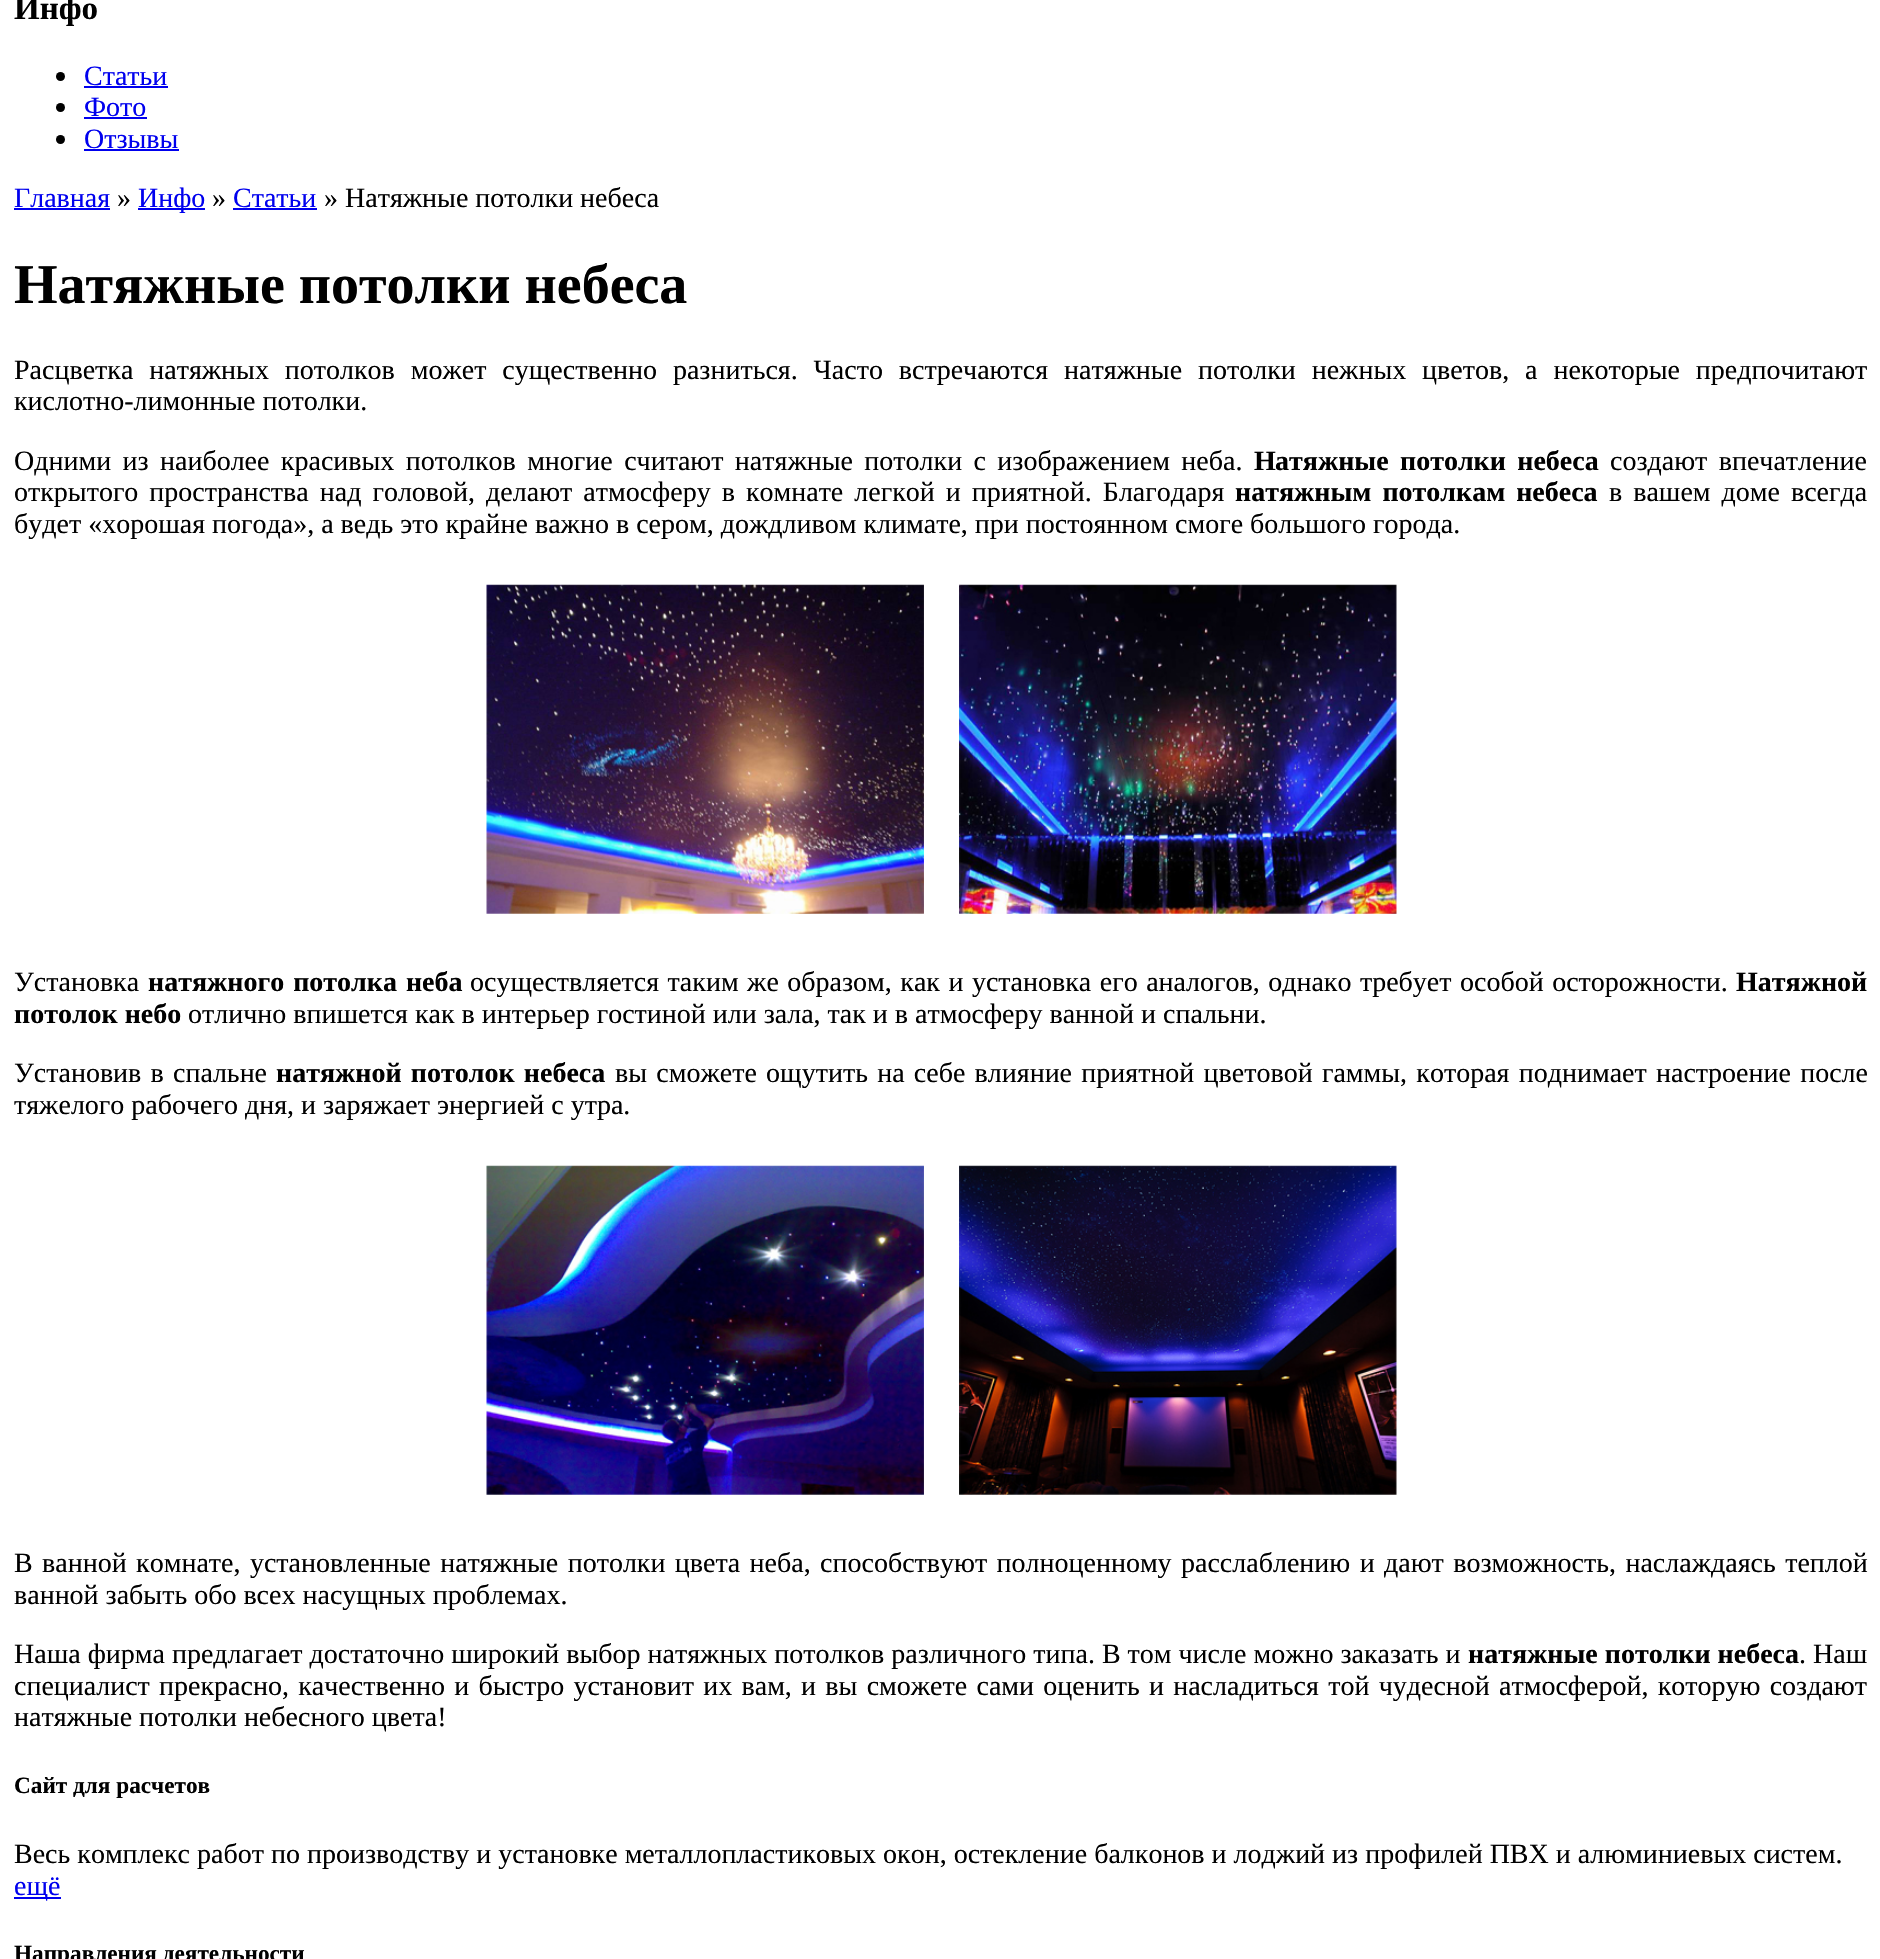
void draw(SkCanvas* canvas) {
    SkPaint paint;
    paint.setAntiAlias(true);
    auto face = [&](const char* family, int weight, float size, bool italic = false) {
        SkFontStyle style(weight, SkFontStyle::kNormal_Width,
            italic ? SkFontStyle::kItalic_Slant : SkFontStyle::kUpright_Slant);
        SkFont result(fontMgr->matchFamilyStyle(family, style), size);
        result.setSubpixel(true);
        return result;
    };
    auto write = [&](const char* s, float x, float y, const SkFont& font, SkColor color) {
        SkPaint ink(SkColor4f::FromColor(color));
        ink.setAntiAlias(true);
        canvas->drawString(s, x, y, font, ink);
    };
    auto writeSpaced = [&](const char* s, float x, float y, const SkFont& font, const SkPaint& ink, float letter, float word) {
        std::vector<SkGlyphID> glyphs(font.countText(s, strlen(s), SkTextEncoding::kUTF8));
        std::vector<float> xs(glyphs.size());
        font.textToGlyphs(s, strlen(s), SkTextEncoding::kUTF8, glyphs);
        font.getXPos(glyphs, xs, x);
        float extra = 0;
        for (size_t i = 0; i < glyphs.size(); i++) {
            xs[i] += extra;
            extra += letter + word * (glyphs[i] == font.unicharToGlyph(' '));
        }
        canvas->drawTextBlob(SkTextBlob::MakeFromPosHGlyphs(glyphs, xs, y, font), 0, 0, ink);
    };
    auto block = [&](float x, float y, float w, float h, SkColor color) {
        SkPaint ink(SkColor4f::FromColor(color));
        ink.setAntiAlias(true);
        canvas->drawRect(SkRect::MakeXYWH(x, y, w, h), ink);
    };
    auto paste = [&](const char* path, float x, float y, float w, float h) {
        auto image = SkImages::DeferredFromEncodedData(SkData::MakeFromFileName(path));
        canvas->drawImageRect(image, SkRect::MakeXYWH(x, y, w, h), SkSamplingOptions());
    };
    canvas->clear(SK_ColorWHITE);
    auto kFont1 = face("Liberation Serif", 700, 33);
    write("Инфо", 14, 19, kFont1, SK_ColorBLACK);
    paint.setColor(SK_ColorBLACK);
    canvas->drawCircle(60.5f, 76.5f, 4.5f, paint);
    auto kFont2 = face("Liberation Serif", 400, 28);
    write("Статьи", 84, 85, kFont2, SkColorSetRGB(0, 0, 238));
    block(84, 86, 84, 2, SkColorSetRGB(0, 0, 238));
    canvas->drawCircle(60.5f, 107.5f, 4.5f, paint);
    write("Фото", 84, 116, kFont2, SkColorSetRGB(0, 0, 238));
    block(84, 117, 63, 2, SkColorSetRGB(0, 0, 238));
    canvas->drawCircle(60.5f, 139.5f, 4.5f, paint);
    write("Отзывы", 84, 148, kFont2, SkColorSetRGB(0, 0, 238));
    block(84, 149, 95, 2, SkColorSetRGB(0, 0, 238));
    write("Главная", 14, 207, kFont2, SkColorSetRGB(0, 0, 238));
    block(14, 208, 96, 2, SkColorSetRGB(0, 0, 238));
    write("»", 117, 207, kFont2, SK_ColorBLACK);
    block(138, 208, 67, 2, SkColorSetRGB(0, 0, 238));
    write("Инфо", 138, 207, kFont2, SkColorSetRGB(0, 0, 238));
    write("»", 212, 207, kFont2, SK_ColorBLACK);
    write("Статьи", 233, 207, kFont2, SkColorSetRGB(0, 0, 238));
    block(233, 208, 84, 2, SkColorSetRGB(0, 0, 238));
    write("» Натяжные потолки небеса", 324, 207, kFont2, SK_ColorBLACK);
    auto kFont3 = face("Liberation Serif", 700, 56);
    write("Натяжные потолки небеса", 14, 303, kFont3, SK_ColorBLACK);
    writeSpaced("Расцветка натяжных потолков может существенно разниться. Часто встречаются натяжные потолки нежных цветов, а некоторые предпочитают", 14, 379, kFont2, paint, 0, 8.9f);
    write("кислотно-лимонные потолки.", 14, 410, kFont2, SK_ColorBLACK);
    writeSpaced("Одними из наиболее красивых потолков многие считают натяжные потолки с изображением неба.", 14, 470, kFont2, paint, 0, 4.4f);
    auto kFont4 = face("Liberation Serif", 700, 28);
    write("Н", 1254, 470, kFont4, SK_ColorBLACK);
    writeSpaced("атяжные потолки небеса", 1275, 470, kFont4, paint, 0, 4.4f);
    writeSpaced("создают впечатление", 1610, 470, kFont2, paint, 0, 4.4f);
    writeSpaced("открытого пространства над головой, делают атмосферу в комнате легкой и приятной. Благодаря", 14, 501, kFont2, paint, 0, 4);
    writeSpaced("натяжным потолкам небеса", 1235, 501, kFont4, paint, 0, 4);
    writeSpaced("в вашем доме всегда", 1609, 501, kFont2, paint, 0, 4);
    write("будет «хорошая погода», а ведь это крайне важно в сером, дождливом климате, при постоянном смоге большого города.", 14, 533, kFont2, SK_ColorBLACK);
    paste("pic1.png", 486, 584, 438, 330);
    paste("pic2.png", 959, 584, 438, 330);
    write("Установка", 14, 991, kFont2, SK_ColorBLACK);
    writeSpaced("натяжного потолка неба", 148, 991, kFont4, paint, 0, 2);
    writeSpaced("осуществляется таким же образом, как и установка его аналогов, однако требует особой осторожности.", 470, 991, kFont2, paint, 0, 1.5f);
    write("Натяжной", 1736, 991, kFont4, SK_ColorBLACK);
    write("потолок небо", 14, 1023, kFont4, SK_ColorBLACK);
    write("отлично впишется как в интерьер гостиной или зала, так и в атмосферу ванной и спальни.", 188, 1023, kFont2, SK_ColorBLACK);
    writeSpaced("Установив в спальне", 14, 1082, kFont2, paint, 0, 2.25f);
    writeSpaced("натяжной потолок небеса", 276, 1082, kFont4, paint, 0, 2.25f);
    writeSpaced("вы сможете ощутить на себе влияние приятной цветовой гаммы, которая поднимает настроение после", 615, 1082, kFont2, paint, 0, 2.25f);
    write("тяжелого рабочего дня, и заряжает энергией с утра.", 14, 1114, kFont2, SK_ColorBLACK);
    paste("pic3.png", 486, 1165, 438, 330);
    paste("pic4.png", 959, 1165, 438, 330);
    writeSpaced("В ванной комнате, установленные натяжные потолки цвета неба, способствуют полноценному расслаблению и дают возможность, наслаждаясь теплой", 14, 1572, kFont2, paint, 0, 2.4f);
    write("ванной забыть обо всех насущных проблемах.", 14, 1604, kFont2, SK_ColorBLACK);
    write("Наша фирма предлагает достаточно широкий выбор натяжных потолков различного типа. В том числе можно заказать и", 14, 1663, kFont2, SK_ColorBLACK);
    write("натяжные потолки небеса", 1468, 1663, kFont4, SK_ColorBLACK);
    write(". Наш", 1799, 1663, kFont2, SK_ColorBLACK);
    writeSpaced("специалист прекрасно, качественно и быстро установит их вам, и вы сможете сами оценить и насладиться той чудесной атмосферой, которую создают", 14, 1695, kFont2, paint, 0, 2.25f);
    write("натяжные потолки небесного цвета!", 14, 1726, kFont2, SK_ColorBLACK);
    auto kFont5 = face("Liberation Serif", 700, 23.25f);
    write("Сайт для расчетов", 14, 1793, kFont5, SK_ColorBLACK);
    write("Весь комплекс работ по производству и установке металлопластиковых окон, остекление балконов и лоджий из профилей ПВХ и алюминиевых систем.", 14, 1863, kFont2, SK_ColorBLACK);
    block(14, 1897, 47, 2, SkColorSetRGB(0, 0, 238));
    write("ещё", 14, 1895, kFont2, SkColorSetRGB(0, 0, 238));
    write("Направления деятельности", 14, 1961, kFont5, SK_ColorBLACK);
}
